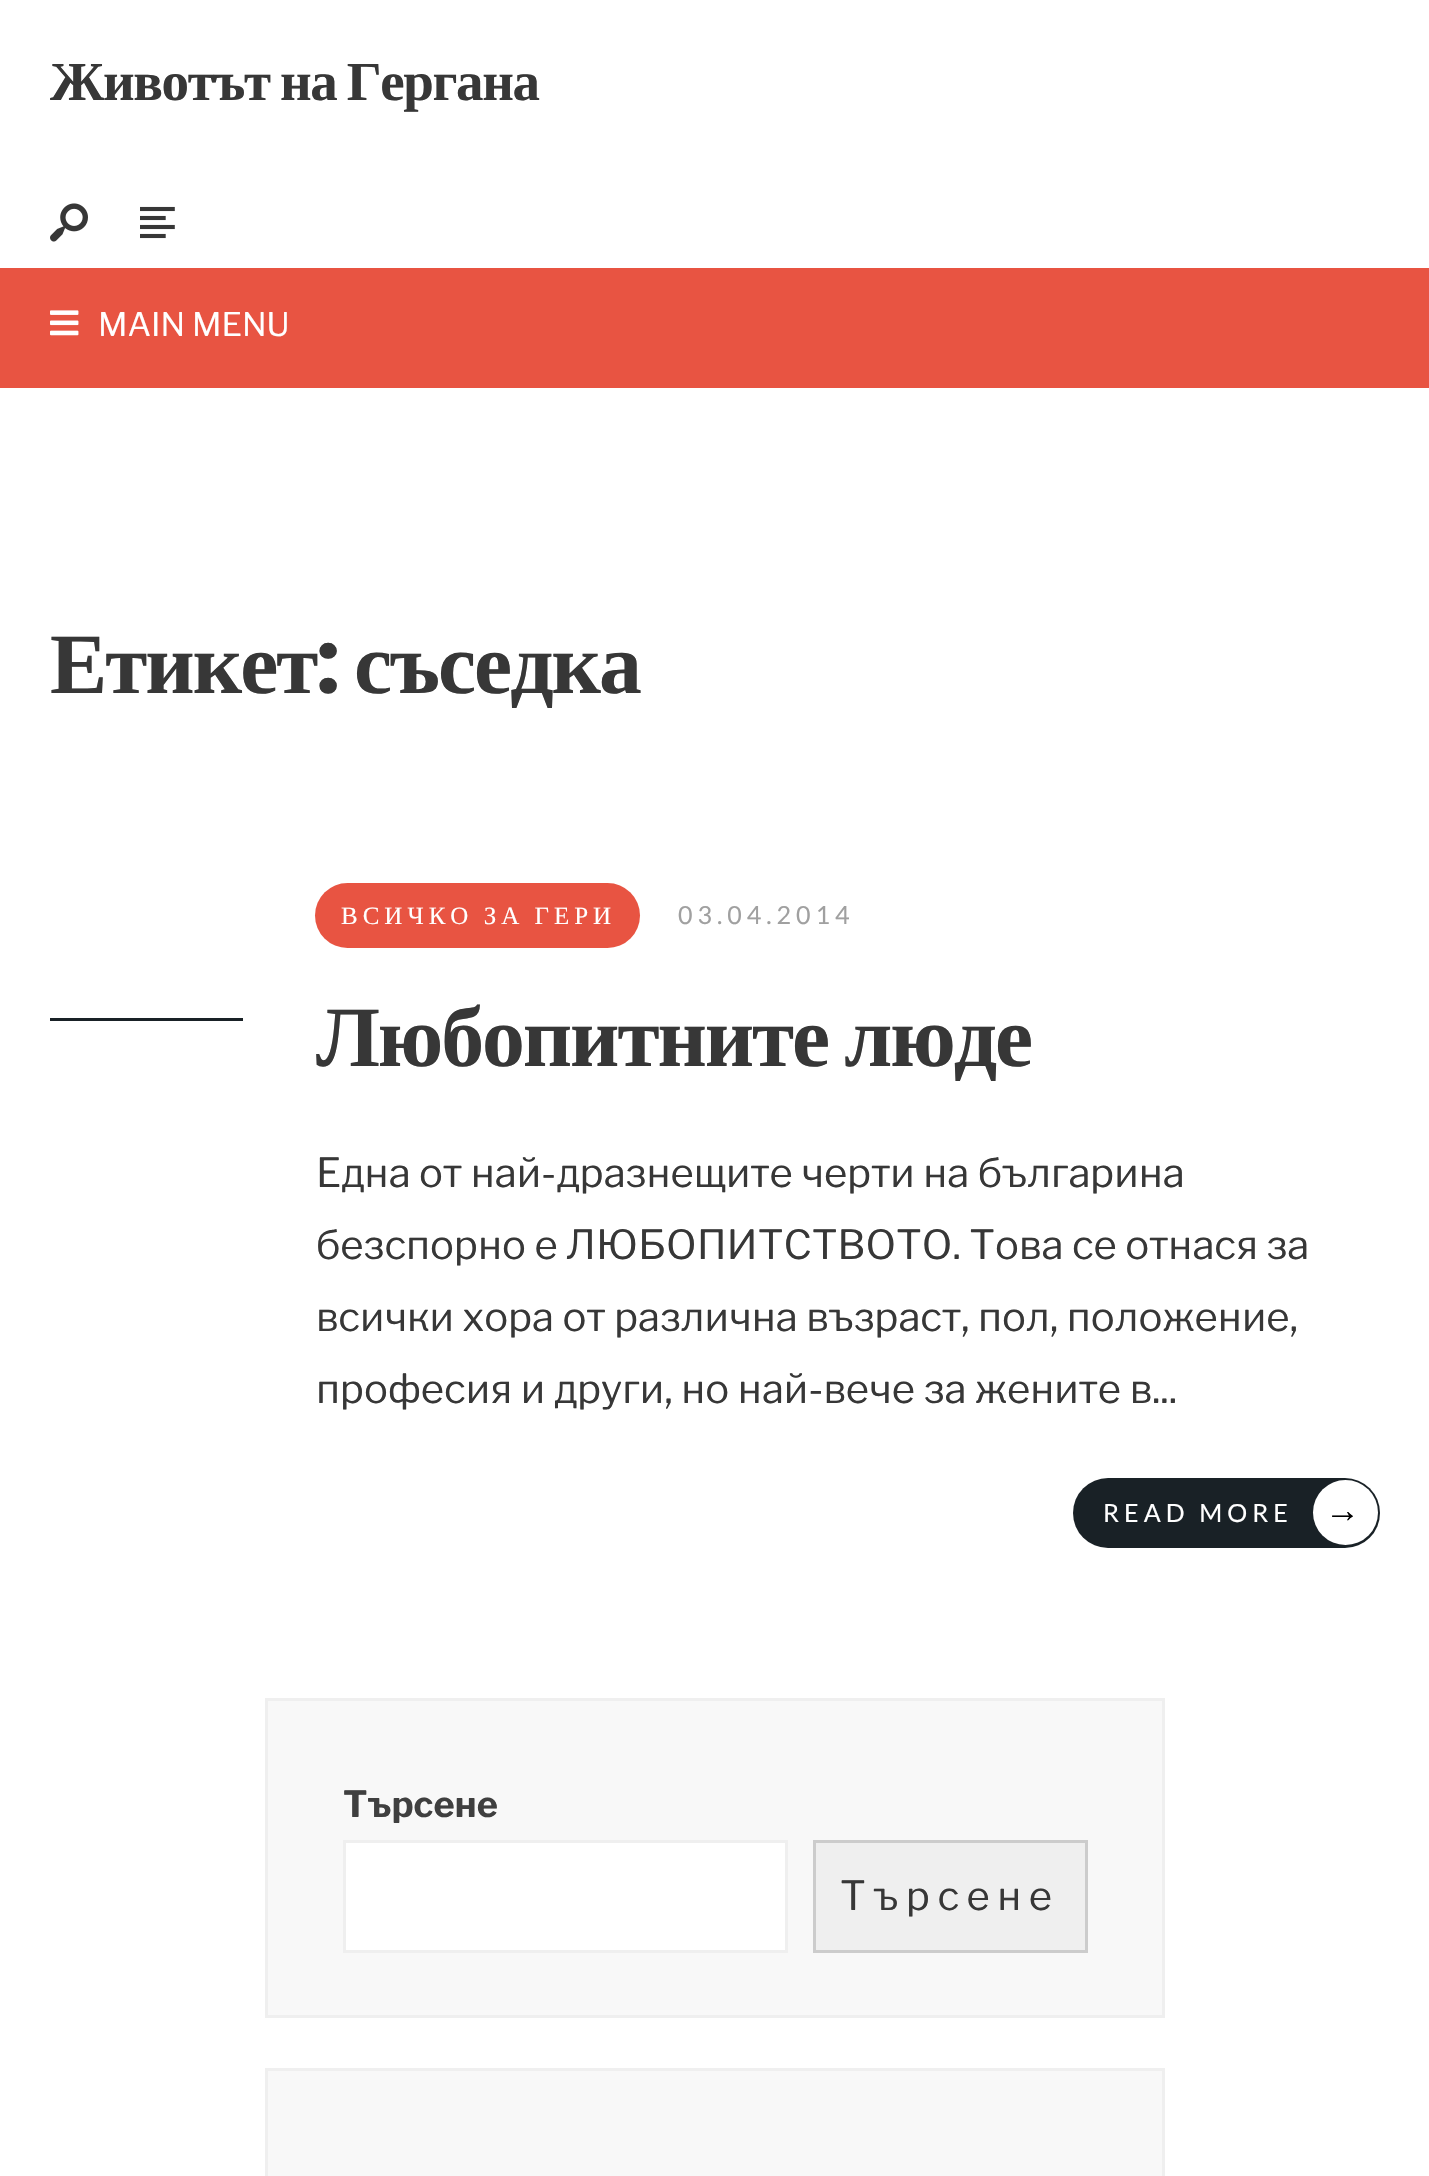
void draw(SkCanvas* canvas) {
    SkPaint paint;
    paint.setAntiAlias(true);
    auto face = [&](const char* family, int weight, float size, bool italic = false) {
        SkFontStyle style(weight, SkFontStyle::kNormal_Width,
            italic ? SkFontStyle::kItalic_Slant : SkFontStyle::kUpright_Slant);
        SkFont result(fontMgr->matchFamilyStyle(family, style), size);
        result.setSubpixel(true);
        return result;
    };
    auto write = [&](const char* s, float x, float y, const SkFont& font, SkColor color) {
        SkPaint ink(SkColor4f::FromColor(color));
        ink.setAntiAlias(true);
        canvas->drawString(s, x, y, font, ink);
    };
    auto writeSpaced = [&](const char* s, float x, float y, const SkFont& font, const SkPaint& ink, float letter, float word) {
        std::vector<SkGlyphID> glyphs(font.countText(s, strlen(s), SkTextEncoding::kUTF8));
        std::vector<float> xs(glyphs.size());
        font.textToGlyphs(s, strlen(s), SkTextEncoding::kUTF8, glyphs);
        font.getXPos(glyphs, xs, x);
        float extra = 0;
        for (size_t i = 0; i < glyphs.size(); i++) {
            xs[i] += extra;
            extra += letter + word * (glyphs[i] == font.unicharToGlyph(' '));
        }
        canvas->drawTextBlob(SkTextBlob::MakeFromPosHGlyphs(glyphs, xs, y, font), 0, 0, ink);
    };
    auto block = [&](float x, float y, float w, float h, SkColor color) {
        SkPaint ink(SkColor4f::FromColor(color));
        ink.setAntiAlias(true);
        canvas->drawRect(SkRect::MakeXYWH(x, y, w, h), ink);
    };
    auto card = [&](float x, float y, float w, float h, float radius, SkColor color) {
        SkPaint ink(SkColor4f::FromColor(color));
        ink.setAntiAlias(true);
        canvas->drawRoundRect(SkRect::MakeXYWH(x, y, w, h), radius, radius, ink);
    };
    auto paste = [&](const char* path, float x, float y, float w, float h) {
        auto image = SkImages::DeferredFromEncodedData(SkData::MakeFromFileName(path));
        canvas->drawImageRect(image, SkRect::MakeXYWH(x, y, w, h), SkSamplingOptions());
    };
    canvas->clear(SK_ColorWHITE);
    auto kFont1 = face("Liberation Serif", 700, 55);
    paint.setColor(SkColorSetRGB(55, 55, 55));
    writeSpaced("Животът на Гергана", 50, 100, kFont1, paint, -1.4f, -2);
    paste("pic1.png", 50, 203, 38, 39);
    paste("pic2.png", 140, 206, 35, 33);
    block(0, 268, 1429, 120, SkColorSetRGB(232, 84, 66));
    paste("pic3.png", 50, 310, 29, 26);
    auto kFont2 = face("Libre Franklin", 400, 32.5f);
    write("MAIN MENU", 98, 336, kFont2, SK_ColorWHITE);
    auto kFont3 = face("Liberation Serif", 700, 85.75f);
    writeSpaced("Етикет", 50, 693, kFont3, paint, -2, 0);
    auto kFont4 = face("Poppins", 700, 85.75f);
    writeSpaced(":", 316, 693, kFont4, paint, -2, 0);
    writeSpaced("съседка", 354, 693, kFont3, paint, -2, 0);
    card(315, 883, 325, 65, 32.5f, SkColorSetRGB(232, 84, 66));
    auto kFont5 = face("Liberation Serif", 400, 25);
    paint.setColor(SK_ColorWHITE);
    writeSpaced("ВСИЧКО ЗА ГЕРИ", 341, 924, kFont5, paint, 5, -1);
    auto kFont6 = face("Lato", 400, 25);
    paint.setColor(SkColorSetRGB(160, 160, 160));
    writeSpaced("03.04.2014", 678, 924, kFont6, paint, 5, 0);
    block(50, 1018, 193, 3, SkColorSetRGB(25, 33, 38));
    paint.setColor(SkColorSetRGB(55, 55, 55));
    writeSpaced("Любопитните люде", 316, 1066, kFont3, paint, -2.1f, -3);
    auto kFont7 = face("Libre Franklin", 400, 40);
    write("Една от най-дразнещите черти на българина", 316, 1187, kFont7, SkColorSetRGB(55, 55, 55));
    write("безспорно е ЛЮБОПИТСТВОТО. Това се отнася за", 316, 1259, kFont7, SkColorSetRGB(55, 55, 55));
    write("всички хора от различна възраст, пол, положение,", 316, 1331, kFont7, SkColorSetRGB(55, 55, 55));
    write("професия и други, но най-вече за жените в...", 316, 1403, kFont7, SkColorSetRGB(55, 55, 55));
    card(1073, 1478, 307, 70, 35, SkColorSetRGB(25, 33, 38));
    paint.setColor(SK_ColorWHITE);
    writeSpaced("READ MORE", 1103, 1522, kFont6, paint, 5, 0);
    canvas->drawCircle(1345.5f, 1512.5f, 32.5f, paint);
    auto kFont8 = face("Liberation Serif", 400, 35);
    paint.setColor(SK_ColorBLACK);
    writeSpaced("→", 1325, 1522, kFont8, paint, 5, 0);
    paint.setColor(SkColorSetRGB(248, 248, 248));
    canvas->drawRect(SkRect::MakeXYWH(266.5f, 1699.5f, 897, 317), paint);
    paint.setStyle(SkPaint::kStroke_Style);
    paint.setStrokeWidth(3);
    paint.setColor(SkColorSetRGB(239, 239, 239));
    canvas->drawRect(SkRect::MakeXYWH(266.5f, 1699.5f, 897, 317), paint);
    auto kFont9 = face("Libre Franklin", 700, 36);
    write("Търсене", 343, 1817, kFont9, SkColorSetRGB(63, 63, 63));
    paint.setStyle(SkPaint::kFill_Style);
    paint.setColor(SK_ColorWHITE);
    canvas->drawRect(SkRect::MakeXYWH(344.5f, 1841.5f, 442, 110), paint);
    paint.setStyle(SkPaint::kStroke_Style);
    paint.setColor(SkColorSetRGB(239, 239, 239));
    canvas->drawRect(SkRect::MakeXYWH(344.5f, 1841.5f, 442, 110), paint);
    paint.setStyle(SkPaint::kFill_Style);
    canvas->drawRect(SkRect::MakeXYWH(814.5f, 1841.5f, 272, 110), paint);
    paint.setStyle(SkPaint::kStroke_Style);
    paint.setColor(SkColorSetRGB(204, 204, 204));
    canvas->drawRect(SkRect::MakeXYWH(814.5f, 1841.5f, 272, 110), paint);
    paint.setStyle(SkPaint::kFill_Style);
    paint.setColor(SkColorSetRGB(55, 55, 55));
    writeSpaced("Търсене", 840, 1910, kFont7, paint, 7.5f, 0);
    paint.setColor(SkColorSetRGB(248, 248, 248));
    canvas->drawRect(SkRect::MakeXYWH(266.5f, 2069.5f, 897, 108), paint);
    paint.setStyle(SkPaint::kStroke_Style);
    paint.setColor(SkColorSetRGB(239, 239, 239));
    canvas->drawRect(SkRect::MakeXYWH(266.5f, 2069.5f, 897, 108), paint);
}
